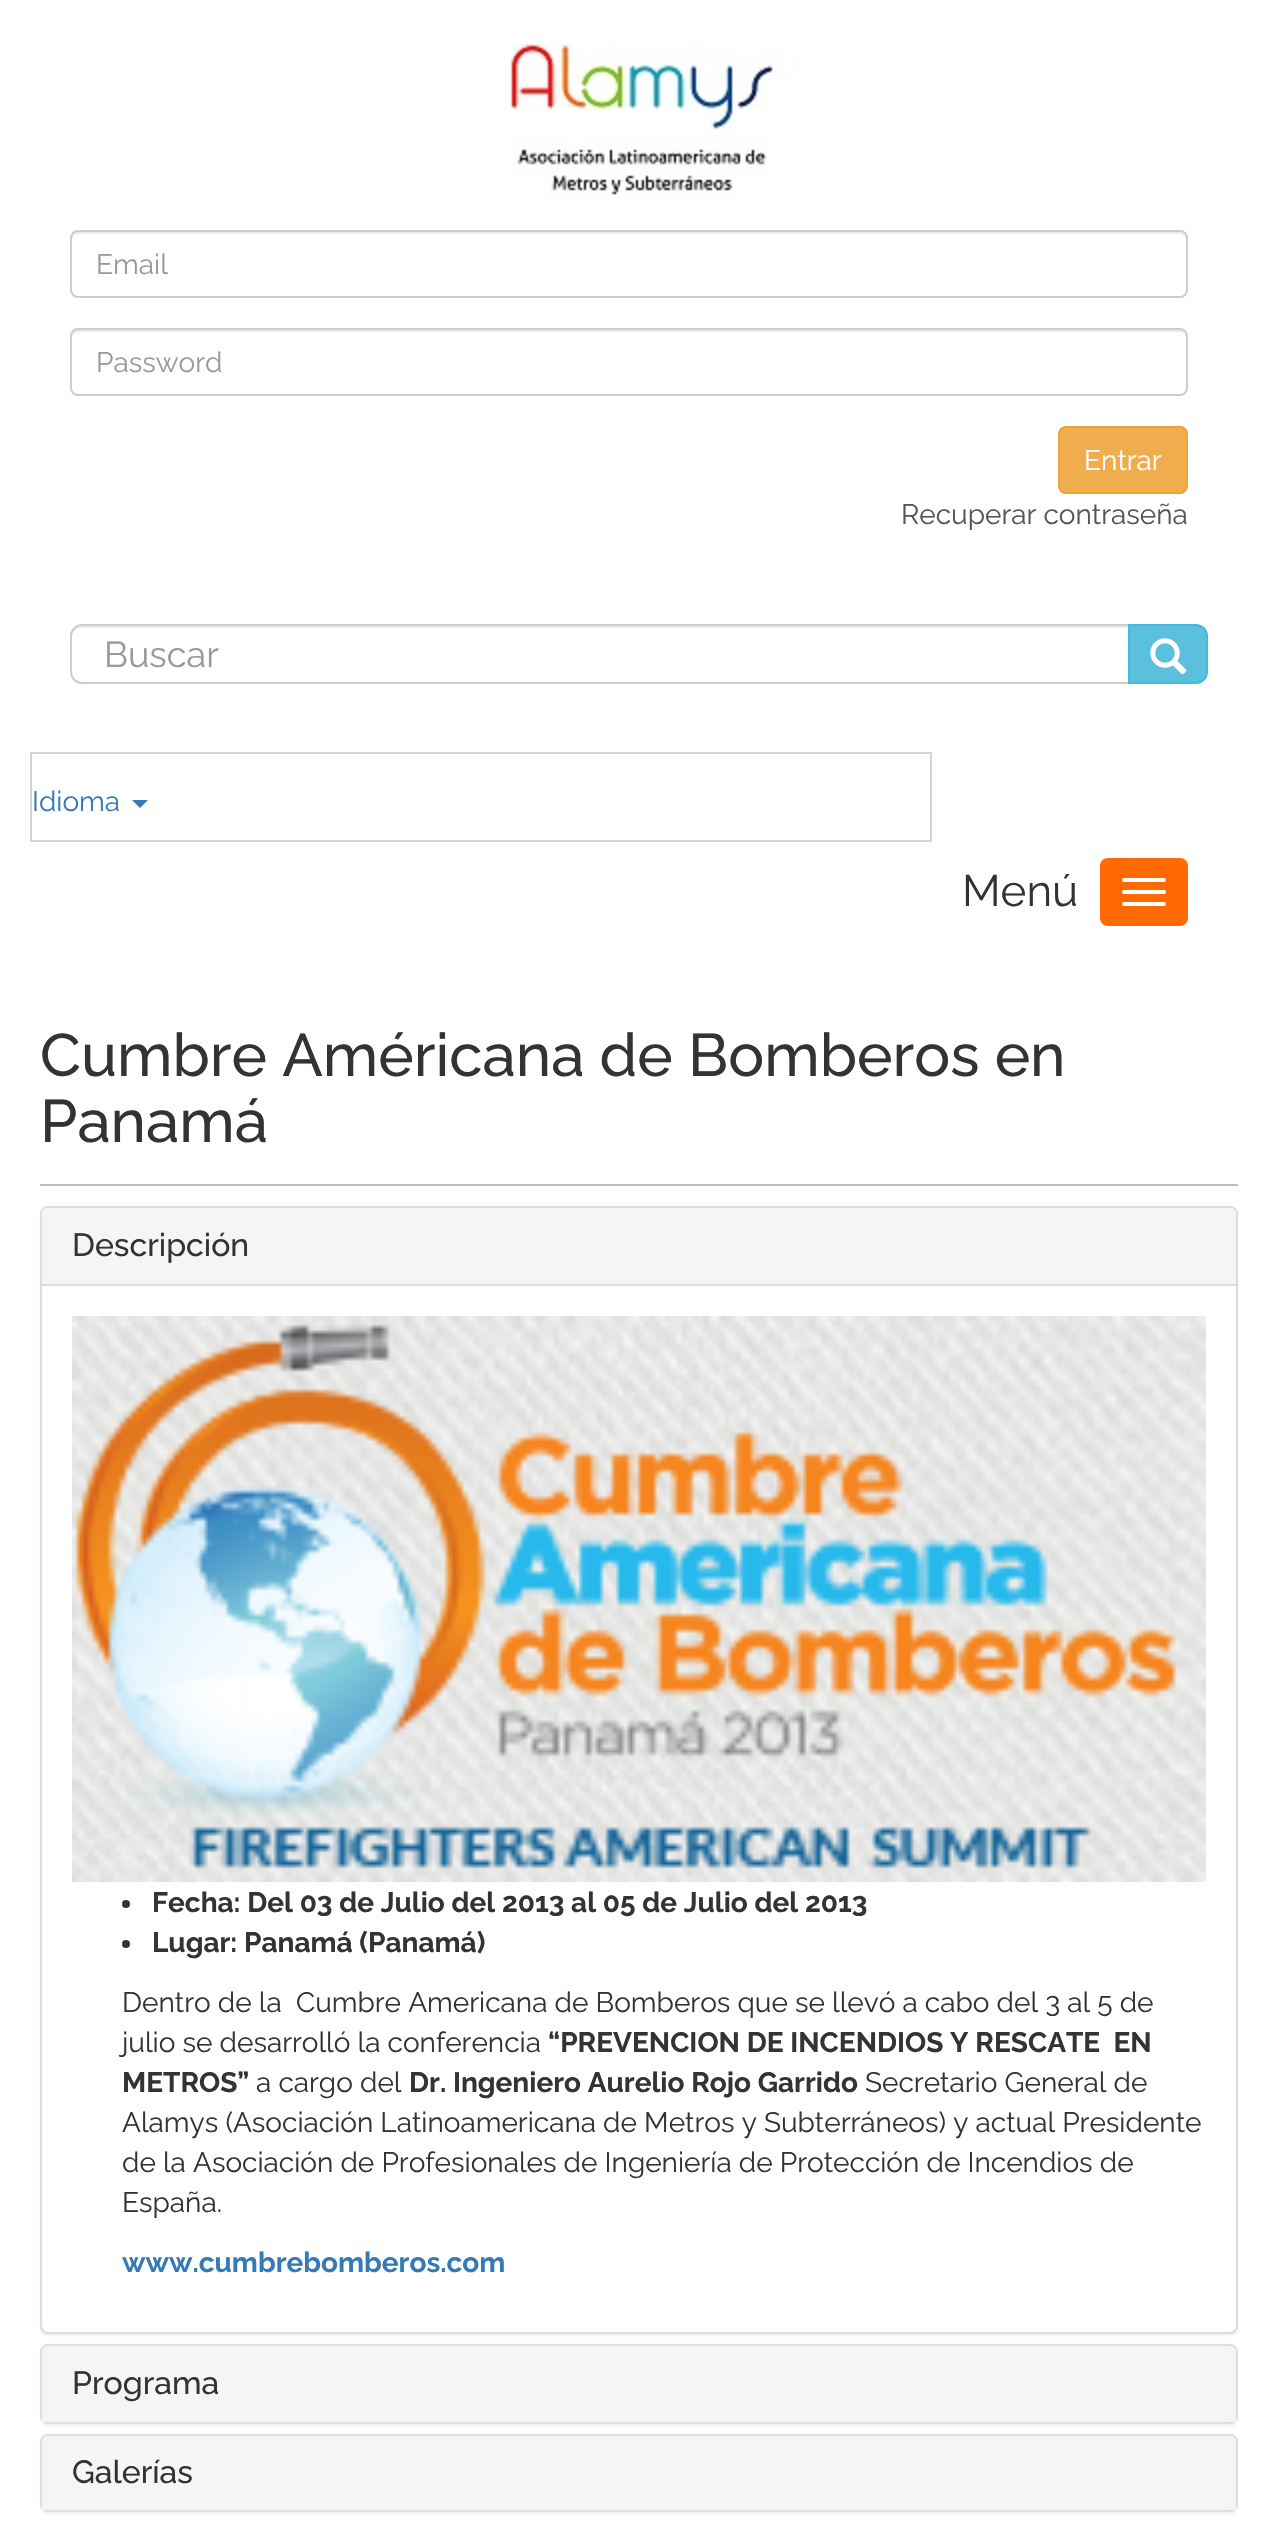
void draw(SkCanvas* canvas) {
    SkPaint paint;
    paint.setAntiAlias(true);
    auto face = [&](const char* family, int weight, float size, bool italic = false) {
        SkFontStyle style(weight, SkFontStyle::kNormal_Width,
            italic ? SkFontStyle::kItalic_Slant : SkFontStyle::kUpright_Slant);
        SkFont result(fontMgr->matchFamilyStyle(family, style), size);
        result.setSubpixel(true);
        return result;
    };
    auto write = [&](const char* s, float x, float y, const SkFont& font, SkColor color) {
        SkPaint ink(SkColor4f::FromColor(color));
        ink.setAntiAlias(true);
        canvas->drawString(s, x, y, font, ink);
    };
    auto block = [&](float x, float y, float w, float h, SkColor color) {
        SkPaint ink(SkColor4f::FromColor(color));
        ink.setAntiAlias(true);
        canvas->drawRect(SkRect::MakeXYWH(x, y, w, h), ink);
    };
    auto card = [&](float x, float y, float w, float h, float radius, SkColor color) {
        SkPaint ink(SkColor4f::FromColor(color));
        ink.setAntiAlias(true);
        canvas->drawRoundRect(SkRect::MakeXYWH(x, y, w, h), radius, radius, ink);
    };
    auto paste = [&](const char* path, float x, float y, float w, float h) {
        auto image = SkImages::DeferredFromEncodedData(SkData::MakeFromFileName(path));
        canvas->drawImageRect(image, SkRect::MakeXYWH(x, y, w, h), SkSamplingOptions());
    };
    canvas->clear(SK_ColorWHITE);
    paste("pic1.png", 509, 44, 291, 156);
    paint.setColor(SkColorSetRGB(236, 236, 236));
    canvas->drawPath(SkPathBuilder().moveTo(78, 234).lineTo(1180, 234).cubicTo(1183, 234, 1186, 237, 1186, 240).lineTo(1186, 238).cubicTo(1186, 235, 1183, 232, 1180, 232).lineTo(78, 232).cubicTo(75, 232, 72, 235, 72, 238).lineTo(72, 240).cubicTo(72, 237, 75, 234, 78, 234).close().detach(), paint);
    paint.setStyle(SkPaint::kStroke_Style);
    paint.setStrokeWidth(2);
    paint.setColor(SkColorSetRGB(204, 204, 204));
    canvas->drawRoundRect(SkRect::MakeXYWH(71, 231, 1116, 66), 7, 7, paint);
    auto kFont1 = face("Raleway", 400, 28);
    write("Email", 96, 274, kFont1, SkColorSetRGB(153, 153, 153));
    paint.setStyle(SkPaint::kFill_Style);
    paint.setColor(SkColorSetRGB(236, 236, 236));
    canvas->drawPath(SkPathBuilder().moveTo(78, 332).lineTo(1180, 332).cubicTo(1183, 332, 1186, 335, 1186, 338).lineTo(1186, 336).cubicTo(1186, 333, 1183, 330, 1180, 330).lineTo(78, 330).cubicTo(75, 330, 72, 333, 72, 336).lineTo(72, 338).cubicTo(72, 335, 75, 332, 78, 332).close().detach(), paint);
    paint.setStyle(SkPaint::kStroke_Style);
    paint.setColor(SkColorSetRGB(204, 204, 204));
    canvas->drawRoundRect(SkRect::MakeXYWH(71, 329, 1116, 66), 7, 7, paint);
    write("Password", 96, 372, kFont1, SkColorSetRGB(153, 153, 153));
    paint.setStyle(SkPaint::kFill_Style);
    paint.setColor(SkColorSetRGB(240, 173, 78));
    canvas->drawRoundRect(SkRect::MakeXYWH(1059, 427, 128, 66), 7, 7, paint);
    paint.setStyle(SkPaint::kStroke_Style);
    paint.setColor(SkColorSetRGB(238, 162, 54));
    canvas->drawRoundRect(SkRect::MakeXYWH(1059, 427, 128, 66), 7, 7, paint);
    write("Entrar", 1084, 470, kFont1, SK_ColorWHITE);
    write("Recuperar contraseña", 901, 524, kFont1, SkColorSetRGB(85, 85, 85));
    paint.setStyle(SkPaint::kFill_Style);
    paint.setColor(SkColorSetRGB(236, 236, 236));
    canvas->drawPath(SkPathBuilder().moveTo(82, 628).lineTo(1128, 628).lineTo(1128, 626).lineTo(82, 626).cubicTo(75, 626, 72, 632, 72, 638).cubicTo(72, 632, 76, 628, 82, 628).close().detach(), paint);
    paint.setStyle(SkPaint::kStroke_Style);
    paint.setColor(SkColorSetRGB(204, 204, 204));
    canvas->drawPath(SkPathBuilder().moveTo(82, 625).lineTo(1129, 625).lineTo(1129, 683).lineTo(82, 683).cubicTo(76, 683, 71, 678, 71, 672).lineTo(71, 636).cubicTo(71, 630, 76, 625, 82, 625).close().detach(), paint);
    auto kFont2 = face("Raleway", 400, 36);
    write("Buscar", 104, 667, kFont2, SkColorSetRGB(153, 153, 153));
    paint.setStyle(SkPaint::kFill_Style);
    paint.setColor(SkColorSetRGB(91, 192, 222));
    canvas->drawPath(SkPathBuilder().moveTo(1129, 625).lineTo(1196, 625).cubicTo(1202, 625, 1207, 630, 1207, 636).lineTo(1207, 672).cubicTo(1207, 678, 1202, 683, 1196, 683).lineTo(1129, 683).close().detach(), paint);
    paint.setStyle(SkPaint::kStroke_Style);
    paint.setColor(SkColorSetRGB(70, 184, 218));
    canvas->drawPath(SkPathBuilder().moveTo(1129, 625).lineTo(1196, 625).cubicTo(1202, 625, 1207, 630, 1207, 636).lineTo(1207, 672).cubicTo(1207, 678, 1202, 683, 1196, 683).lineTo(1129, 683).close().detach(), paint);
    paste("pic2.png", 1150, 638, 37, 37);
    paint.setColor(SkColorSetRGB(214, 212, 213));
    canvas->drawRect(SkRect::MakeXYWH(31, 753, 900, 88), paint);
    write("Idioma", 32, 811, kFont1, SkColorSetRGB(51, 122, 183));
    paint.setStyle(SkPaint::kFill_Style);
    paint.setColor(SkColorSetRGB(51, 122, 183));
    canvas->drawPath(SkPathBuilder().moveTo(132, 800).lineTo(148, 800).lineTo(140, 808).close().detach(), paint);
    auto kFont3 = face("Raleway", 400, 44);
    write("Menú", 962, 906, kFont3, SkColorSetRGB(51, 51, 51));
    card(1100, 858, 88, 68, 8, SkColorSetRGB(255, 106, 3));
    card(1122, 878, 44, 4, 2, SK_ColorWHITE);
    card(1122, 890, 44, 4, 2, SK_ColorWHITE);
    card(1122, 902, 44, 4, 2, SK_ColorWHITE);
    block(40, 1184, 1198, 2, SkColorSetRGB(191, 191, 191));
    auto kFont4 = face("Raleway", 500, 60);
    write("Cumbre Américana de Bomberos en", 40, 1076, kFont4, SkColorSetRGB(51, 51, 51));
    write("Panamá", 40, 1142, kFont4, SkColorSetRGB(51, 51, 51));
    paint.setColor(SkColorSetARGB(13, 0, 0, 0));
    paint.setMaskFilter(SkMaskFilter::MakeBlur(kNormal_SkBlurStyle, 1));
    canvas->drawRoundRect(SkRect::MakeXYWH(40, 1208, 1198, 1128), 8, 8, paint);
    paint.setMaskFilter(nullptr);
    paint.setColor(SK_ColorWHITE);
    canvas->drawRoundRect(SkRect::MakeXYWH(41, 1207, 1196, 1126), 7, 7, paint);
    paint.setStyle(SkPaint::kStroke_Style);
    paint.setColor(SkColorSetRGB(221, 221, 221));
    canvas->drawRoundRect(SkRect::MakeXYWH(41, 1207, 1196, 1126), 7, 7, paint);
    paint.setStyle(SkPaint::kFill_Style);
    paint.setColor(SkColorSetRGB(245, 245, 245));
    canvas->drawPath(SkPathBuilder().moveTo(48, 1208).lineTo(1230, 1208).cubicTo(1233.5f, 1208, 1236, 1210.5f, 1236, 1214).lineTo(1236, 1284).lineTo(42, 1284).lineTo(42, 1214).cubicTo(42, 1210.5f, 44.5f, 1208, 48, 1208).close().detach(), paint);
    auto kFont5 = face("Raleway", 500, 32);
    write("Descripción", 72, 1256, kFont5, SkColorSetRGB(51, 51, 51));
    block(42, 1284, 1194, 2, SkColorSetRGB(221, 221, 221));
    paste("pic3.png", 72, 1316, 1134, 566);
    paint.setColor(SkColorSetRGB(51, 51, 51));
    canvas->drawCircle(126, 1904, 4, paint);
    auto kFont6 = face("Raleway", 700, 28);
    write("Fecha: Del 03 de Julio del 2013 al 05 de Julio del 2013", 152, 1912, kFont6, SkColorSetRGB(51, 51, 51));
    canvas->drawCircle(126, 1944, 4, paint);
    write("Lugar: Panamá (Panamá)", 152, 1952, kFont6, SkColorSetRGB(51, 51, 51));
    write("Dentro de la  Cumbre Americana de Bomberos que se llevó a cabo del 3 al 5 de", 122, 2012, kFont1, SkColorSetRGB(51, 51, 51));
    write("julio se desarrolló la conferencia", 122, 2052, kFont1, SkColorSetRGB(51, 51, 51));
    write("“PREVENCION DE INCENDIOS Y RESCATE  EN", 548, 2052, kFont6, SkColorSetRGB(51, 51, 51));
    write("METROS”", 122, 2092, kFont6, SkColorSetRGB(51, 51, 51));
    write("a cargo del", 256, 2092, kFont1, SkColorSetRGB(51, 51, 51));
    write("Dr. Ingeniero Aurelio Rojo Garrido", 409, 2092, kFont6, SkColorSetRGB(51, 51, 51));
    write("Secretario General de", 865, 2092, kFont1, SkColorSetRGB(51, 51, 51));
    write("Alamys (Asociación Latinoamericana de Metros y Subterráneos) y actual Presidente", 122, 2132, kFont1, SkColorSetRGB(51, 51, 51));
    write("de la Asociación de Profesionales de Ingeniería de Protección de Incendios de", 122, 2172, kFont1, SkColorSetRGB(51, 51, 51));
    write("España.", 122, 2212, kFont1, SkColorSetRGB(51, 51, 51));
    write("www.cumbrebomberos.com", 122, 2272, kFont6, SkColorSetRGB(51, 122, 183));
    paint.setColor(SkColorSetARGB(13, 0, 0, 0));
    paint.setMaskFilter(SkMaskFilter::MakeBlur(kNormal_SkBlurStyle, 1));
    canvas->drawRoundRect(SkRect::MakeXYWH(40, 2346, 1198, 80), 8, 8, paint);
    paint.setMaskFilter(nullptr);
    paint.setStyle(SkPaint::kStroke_Style);
    paint.setColor(SkColorSetRGB(221, 221, 221));
    canvas->drawRoundRect(SkRect::MakeXYWH(41, 2345, 1196, 78), 7, 7, paint);
    paint.setStyle(SkPaint::kFill_Style);
    paint.setColor(SkColorSetRGB(245, 245, 245));
    canvas->drawPath(SkPathBuilder().moveTo(48, 2346).lineTo(1230, 2346).cubicTo(1233.5f, 2346, 1236, 2348.5f, 1236, 2352).lineTo(1236, 2422).lineTo(42, 2422).lineTo(42, 2352).cubicTo(42, 2348.5f, 44.5f, 2346, 48, 2346).close().detach(), paint);
    write("Programa", 72, 2394, kFont5, SkColorSetRGB(51, 51, 51));
    paint.setColor(SkColorSetARGB(13, 0, 0, 0));
    paint.setMaskFilter(SkMaskFilter::MakeBlur(kNormal_SkBlurStyle, 1));
    canvas->drawRoundRect(SkRect::MakeXYWH(40, 2436, 1198, 78), 8, 8, paint);
    paint.setMaskFilter(nullptr);
    paint.setStyle(SkPaint::kStroke_Style);
    paint.setColor(SkColorSetRGB(221, 221, 221));
    canvas->drawRoundRect(SkRect::MakeXYWH(41, 2435, 1196, 76), 7, 7, paint);
    paint.setStyle(SkPaint::kFill_Style);
    paint.setColor(SkColorSetRGB(245, 245, 245));
    canvas->drawPath(SkPathBuilder().moveTo(48, 2436).lineTo(1230, 2436).cubicTo(1233.5f, 2436, 1236, 2438.5f, 1236, 2442).lineTo(1236, 2510).lineTo(42, 2510).lineTo(42, 2442).cubicTo(42, 2438.5f, 44.5f, 2436, 48, 2436).close().detach(), paint);
    write("Galerías", 72, 2483, kFont5, SkColorSetRGB(51, 51, 51));
}
